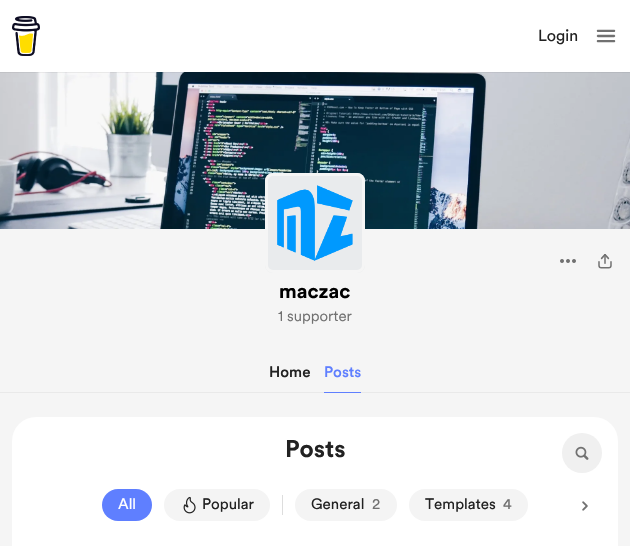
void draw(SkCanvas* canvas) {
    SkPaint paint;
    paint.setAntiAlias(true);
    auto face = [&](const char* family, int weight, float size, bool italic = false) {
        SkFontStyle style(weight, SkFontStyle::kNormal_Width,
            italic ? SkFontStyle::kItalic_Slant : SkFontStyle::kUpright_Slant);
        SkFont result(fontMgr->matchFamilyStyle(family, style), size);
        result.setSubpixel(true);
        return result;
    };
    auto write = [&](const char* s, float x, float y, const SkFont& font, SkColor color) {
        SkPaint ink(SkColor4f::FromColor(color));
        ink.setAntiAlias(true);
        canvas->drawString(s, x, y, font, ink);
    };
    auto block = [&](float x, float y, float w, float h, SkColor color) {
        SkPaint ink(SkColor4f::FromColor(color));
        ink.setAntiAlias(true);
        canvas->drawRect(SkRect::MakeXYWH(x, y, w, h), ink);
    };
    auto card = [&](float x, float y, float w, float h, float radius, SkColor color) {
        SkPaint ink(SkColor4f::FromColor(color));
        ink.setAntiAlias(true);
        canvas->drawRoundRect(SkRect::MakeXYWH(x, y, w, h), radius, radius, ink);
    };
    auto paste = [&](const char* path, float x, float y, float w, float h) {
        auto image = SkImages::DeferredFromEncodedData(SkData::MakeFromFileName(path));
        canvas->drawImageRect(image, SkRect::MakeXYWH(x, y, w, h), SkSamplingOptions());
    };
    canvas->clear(SK_ColorWHITE);
    paste("pic3.png", 0, 72, 630, 157);
    canvas->save();
    canvas->clipRect(SkRect::MakeXYWH(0, 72, 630, 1));
    paint.setColor(SkColorSetARGB(15, 0, 0, 0));
    paint.setMaskFilter(SkMaskFilter::MakeBlur(kNormal_SkBlurStyle, 0.5f));
    canvas->drawRect(SkRect::MakeXYWH(0, 1, 630, 72), paint);
    paint.setMaskFilter(nullptr);
    canvas->restore();
    paste("pic1.png", 12, 16, 28, 40);
    auto kFont1 = face("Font", 400, 16);
    write("Login", 538, 41, kFont1, SkColorSetRGB(34, 34, 34));
    paste("pic2.png", 596, 29, 20, 14);
    block(0, 229, 630, 317, SkColorSetRGB(245, 245, 245));
    paste("pic4.png", 560, 259, 16, 4);
    paste("pic5.png", 598, 254, 14, 15);
    paste("pic6.png", 265, 173, 100, 100);
    paint.setStyle(SkPaint::kStroke_Style);
    paint.setStrokeWidth(3);
    paint.setColor(SkColorSetRGB(245, 245, 245));
    canvas->drawRoundRect(SkRect::MakeXYWH(266.5f, 174.5f, 97, 97), 6.5f, 6.5f, paint);
    paste("pic7.png", 277, 185, 76, 76);
    auto kFont2 = face("Font", 700, 20);
    write("maczac", 279, 298, kFont2, SK_ColorBLACK);
    auto kFont3 = face("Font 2", 400, 15);
    write("1 supporter", 278, 321, kFont3, SkColorSetRGB(113, 113, 113));
    auto kFont4 = face("Font", 500, 15);
    write("Home", 269, 377, kFont4, SkColorSetRGB(34, 34, 34));
    write("Posts", 324, 377, kFont4, SkColorSetRGB(95, 127, 255));
    block(0, 392, 630, 1, SkColorSetRGB(233, 233, 233));
    block(324, 392, 37, 1, SkColorSetRGB(95, 127, 255));
    card(12, 417, 606, 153, 24, SK_ColorWHITE);
    auto kFont5 = face("Font", 700, 24);
    write("Posts", 285, 457, kFont5, SkColorSetRGB(34, 34, 34));
    paint.setStyle(SkPaint::kFill_Style);
    paint.setColor(SkColorSetRGB(240, 240, 240));
    canvas->drawCircle(582, 453, 20, paint);
    paste("pic8.png", 575, 446, 14, 14);
    card(102, 489, 50, 32, 16, SkColorSetRGB(95, 127, 255));
    auto kFont6 = face("Font", 400, 15);
    write("All", 118, 509, kFont6, SK_ColorWHITE);
    card(164, 489, 106, 32, 16, SkColorSetRGB(244, 244, 244));
    paste("pic9.png", 183, 496, 13, 18);
    write("Popular", 202, 509, kFont6, SkColorSetRGB(34, 34, 34));
    block(282, 495, 1, 20, SkColorSetRGB(221, 221, 221));
    card(295, 489, 102, 32, 16, SkColorSetRGB(244, 244, 244));
    write("General", 311, 509, kFont6, SkColorSetRGB(34, 34, 34));
    write("2", 372, 509, kFont6, SkColorSetRGB(113, 113, 113));
    card(409, 489, 119, 32, 16, SkColorSetRGB(244, 244, 244));
    write("Templates", 425, 509, kFont6, SkColorSetRGB(34, 34, 34));
    write("4", 503, 509, kFont6, SkColorSetRGB(113, 113, 113));
    paste("pic10.png", 582, 501, 6, 10);
}
